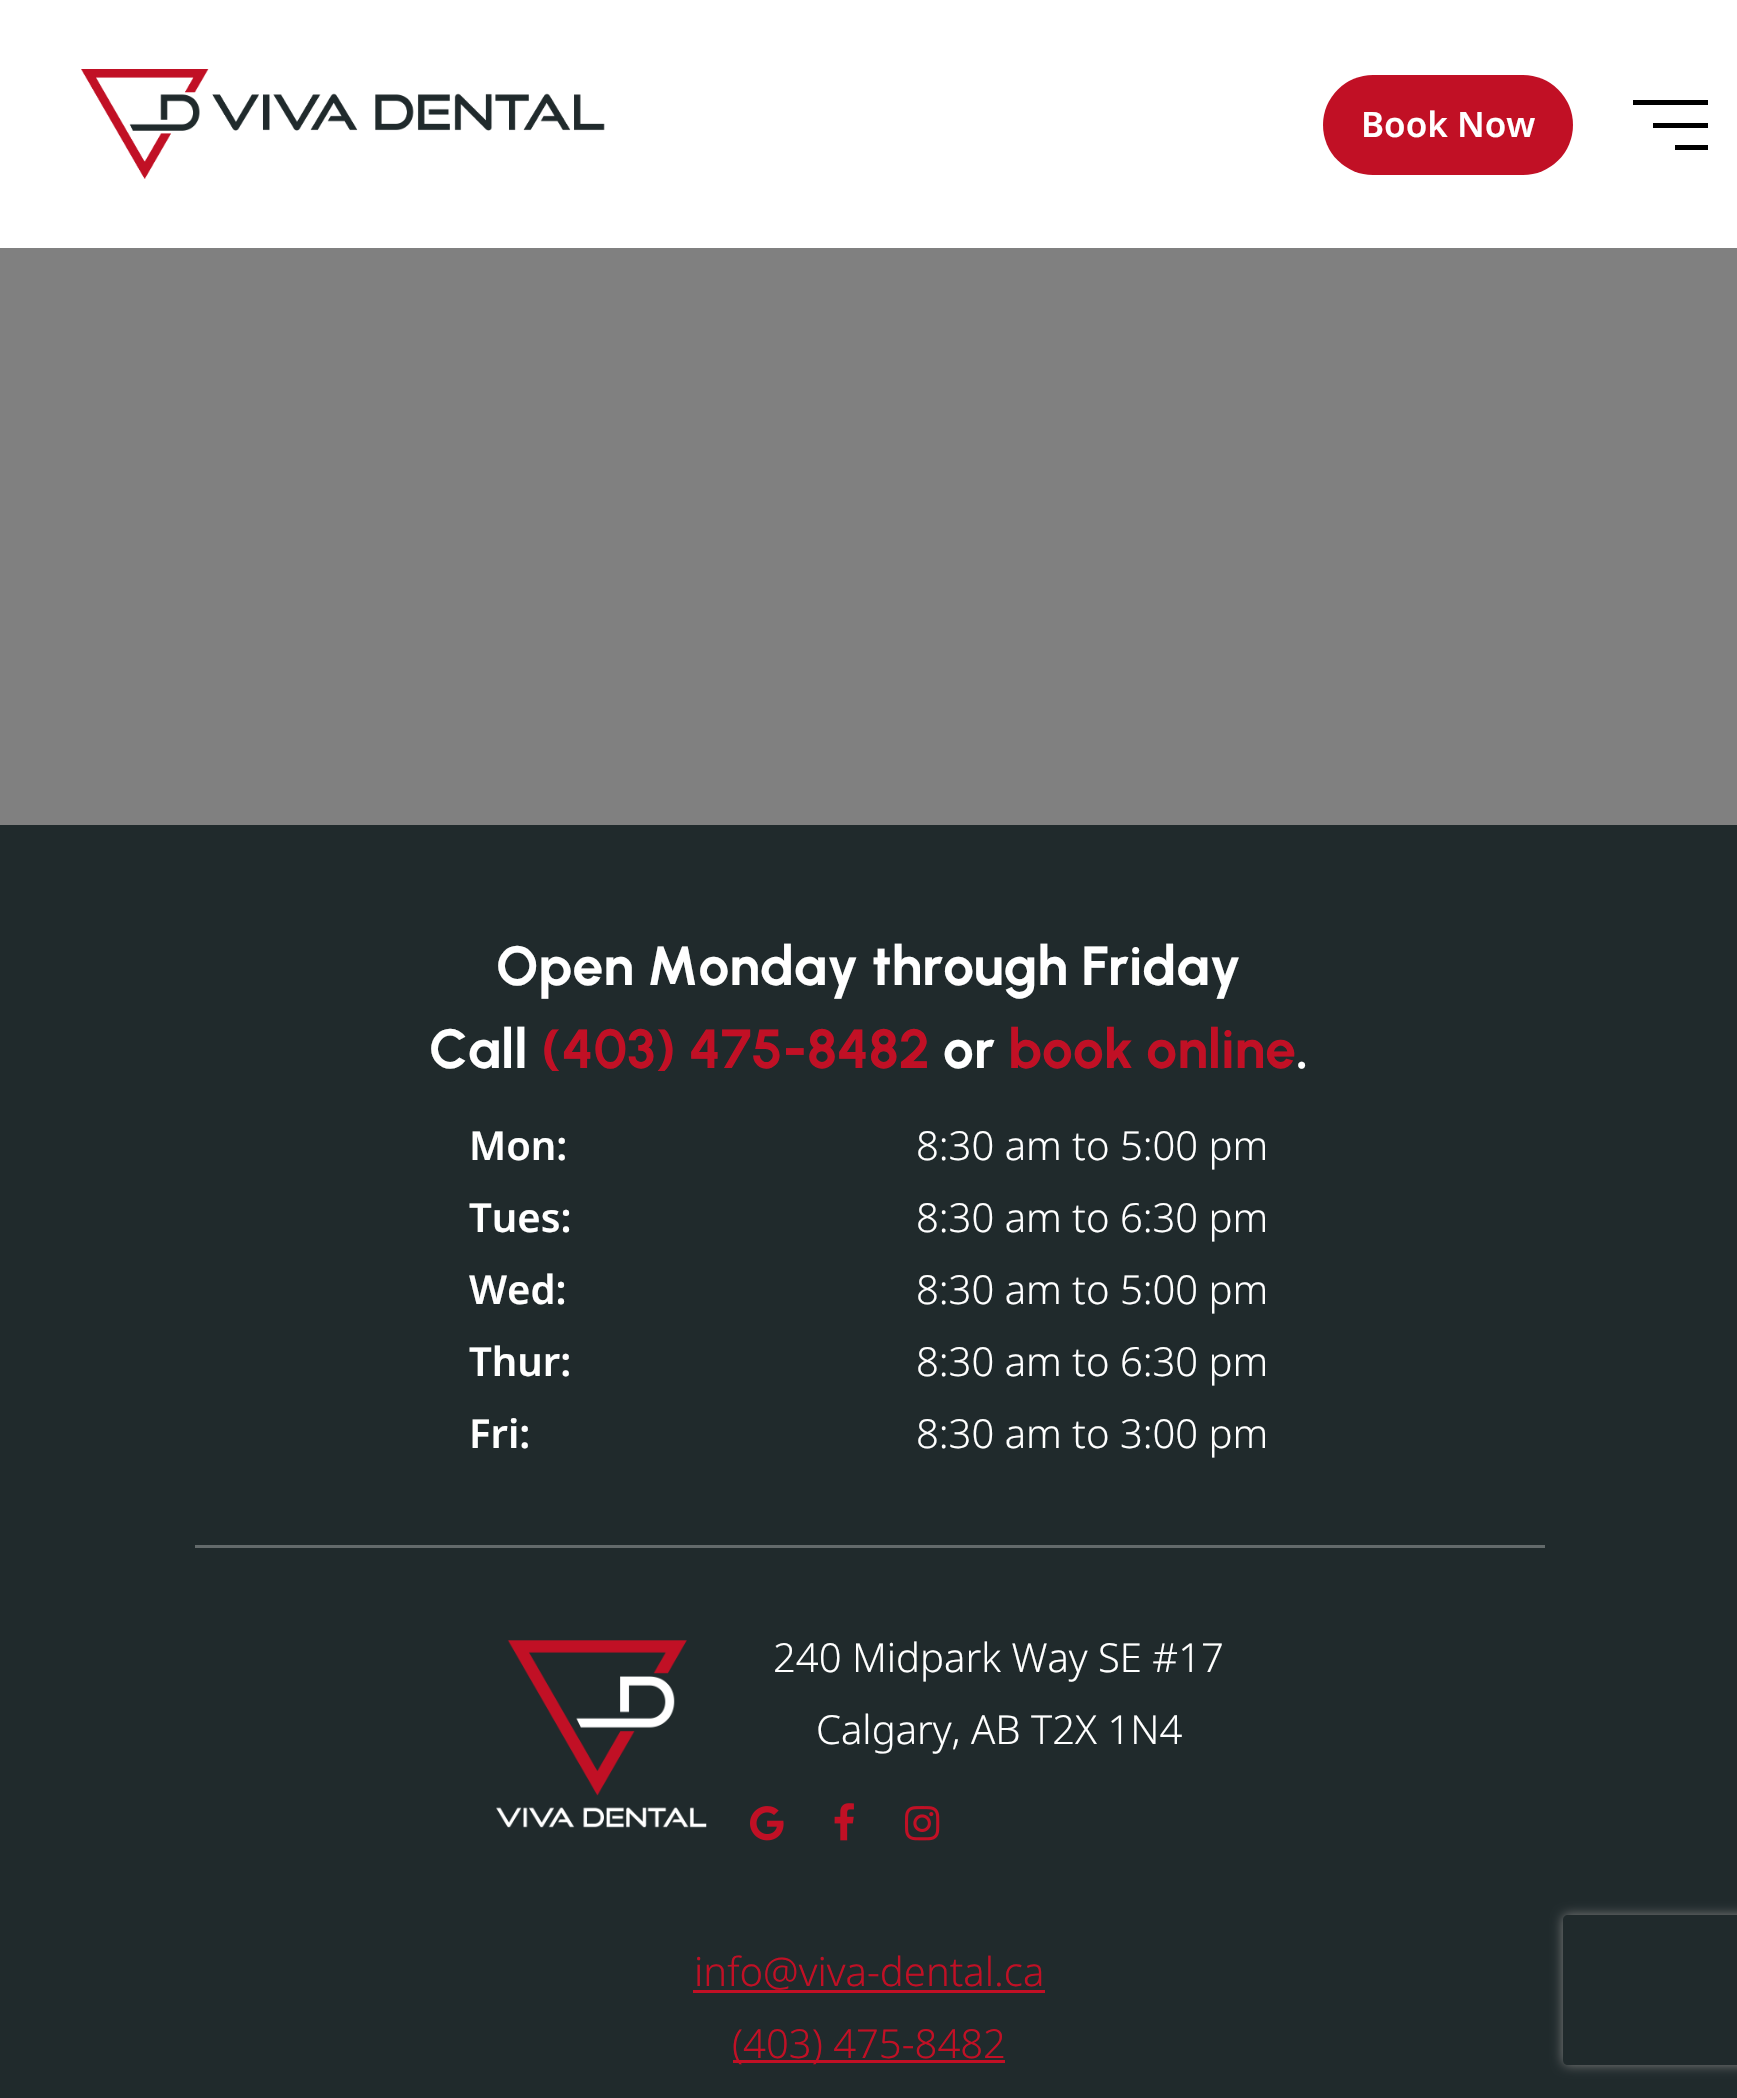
void draw(SkCanvas* canvas) {
    SkPaint paint;
    paint.setAntiAlias(true);
    auto face = [&](const char* family, int weight, float size, bool italic = false) {
        SkFontStyle style(weight, SkFontStyle::kNormal_Width,
            italic ? SkFontStyle::kItalic_Slant : SkFontStyle::kUpright_Slant);
        SkFont result(fontMgr->matchFamilyStyle(family, style), size);
        result.setSubpixel(true);
        return result;
    };
    auto write = [&](const char* s, float x, float y, const SkFont& font, SkColor color) {
        SkPaint ink(SkColor4f::FromColor(color));
        ink.setAntiAlias(true);
        canvas->drawString(s, x, y, font, ink);
    };
    auto block = [&](float x, float y, float w, float h, SkColor color) {
        SkPaint ink(SkColor4f::FromColor(color));
        ink.setAntiAlias(true);
        canvas->drawRect(SkRect::MakeXYWH(x, y, w, h), ink);
    };
    auto card = [&](float x, float y, float w, float h, float radius, SkColor color) {
        SkPaint ink(SkColor4f::FromColor(color));
        ink.setAntiAlias(true);
        canvas->drawRoundRect(SkRect::MakeXYWH(x, y, w, h), radius, radius, ink);
    };
    auto paste = [&](const char* path, float x, float y, float w, float h) {
        auto image = SkImages::DeferredFromEncodedData(SkData::MakeFromFileName(path));
        canvas->drawImageRect(image, SkRect::MakeXYWH(x, y, w, h), SkSamplingOptions());
    };
    canvas->clear(SkColorSetRGB(32, 42, 44));
    block(0, 0, 1737, 248, SK_ColorWHITE);
    paste("pic1.png", 81, 69, 524, 110);
    card(1323, 75, 250, 100, 50, SkColorSetRGB(193, 16, 37));
    auto kFont1 = face("Noto Sans", 600, 35);
    write("Book Now", 1361, 137, kFont1, SK_ColorWHITE);
    block(1633, 100, 75, 5, SK_ColorBLACK);
    block(1653, 123, 55, 5, SK_ColorBLACK);
    block(1675, 145, 33, 5, SK_ColorBLACK);
    block(0, 248, 1737, 577, SkColorSetRGB(128, 128, 128));
    auto kFont2 = face("Urbanist", 700, 55);
    write("Open Monday through Friday", 496, 985, kFont2, SK_ColorWHITE);
    write("Call", 429, 1068, kFont2, SK_ColorWHITE);
    write("(403) 475-8482", 541, 1068, kFont2, SkColorSetRGB(193, 16, 37));
    write("or", 943, 1068, kFont2, SK_ColorWHITE);
    write("book online", 1008, 1068, kFont2, SkColorSetRGB(193, 16, 37));
    write(".", 1296, 1068, kFont2, SK_ColorWHITE);
    auto kFont3 = face("Noto Sans", 600, 40);
    write("Mon:", 469, 1160, kFont3, SK_ColorWHITE);
    auto kFont4 = face("Noto Sans", 300, 40);
    write("8:30 am to 5:00 pm", 916, 1160, kFont4, SK_ColorWHITE);
    write("Tues:", 469, 1232, kFont3, SK_ColorWHITE);
    write("8:30 am to 6:30 pm", 916, 1232, kFont4, SK_ColorWHITE);
    write("Wed:", 469, 1304, kFont3, SK_ColorWHITE);
    write("8:30 am to 5:00 pm", 916, 1304, kFont4, SK_ColorWHITE);
    write("Thur:", 469, 1376, kFont3, SK_ColorWHITE);
    write("8:30 am to 6:30 pm", 916, 1376, kFont4, SK_ColorWHITE);
    write("Fri:", 469, 1448, kFont3, SK_ColorWHITE);
    write("8:30 am to 3:00 pm", 916, 1448, kFont4, SK_ColorWHITE);
    block(195, 1545, 1350, 3, SkColorSetRGB(99, 106, 107));
    paste("pic2.png", 496, 1640, 211, 188);
    write("240 Midpark Way SE #17", 773, 1672, kFont4, SK_ColorWHITE);
    write("Calgary, AB T2X 1N4", 816, 1744, kFont4, SK_ColorWHITE);
    paste("pic3.png", 750, 1806, 34, 35);
    paste("pic4.png", 834, 1803, 20, 38);
    paste("pic5.png", 905, 1806, 35, 35);
    write("info@viva-dental.ca", 694, 1986, kFont4, SkColorSetRGB(193, 16, 37));
    block(693, 1990, 352, 3, SkColorSetRGB(193, 16, 37));
    block(733, 2060, 272, 3, SkColorSetRGB(193, 16, 37));
    write("(403) 475-8482", 732, 2058, kFont4, SkColorSetRGB(193, 16, 37));
    canvas->save();
    canvas->clipPath(SkPathBuilder(SkPathFillType::kEvenOdd).moveTo(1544, 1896).lineTo(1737, 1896).lineTo(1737, 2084).lineTo(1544, 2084).close().moveTo(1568, 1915).lineTo(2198, 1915).cubicTo(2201, 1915, 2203, 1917, 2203, 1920).lineTo(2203, 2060).cubicTo(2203, 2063, 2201, 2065, 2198, 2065).lineTo(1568, 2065).cubicTo(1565, 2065, 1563, 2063, 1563, 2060).lineTo(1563, 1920).cubicTo(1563, 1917, 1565, 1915, 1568, 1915).close().detach(), true);
    paint.setColor(SkColorSetRGB(128, 128, 128));
    paint.setMaskFilter(SkMaskFilter::MakeBlur(kNormal_SkBlurStyle, 6));
    canvas->drawRoundRect(SkRect::MakeXYWH(1563, 1915, 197, 150), 5, 5, paint);
    paint.setMaskFilter(nullptr);
    canvas->restore();
}
